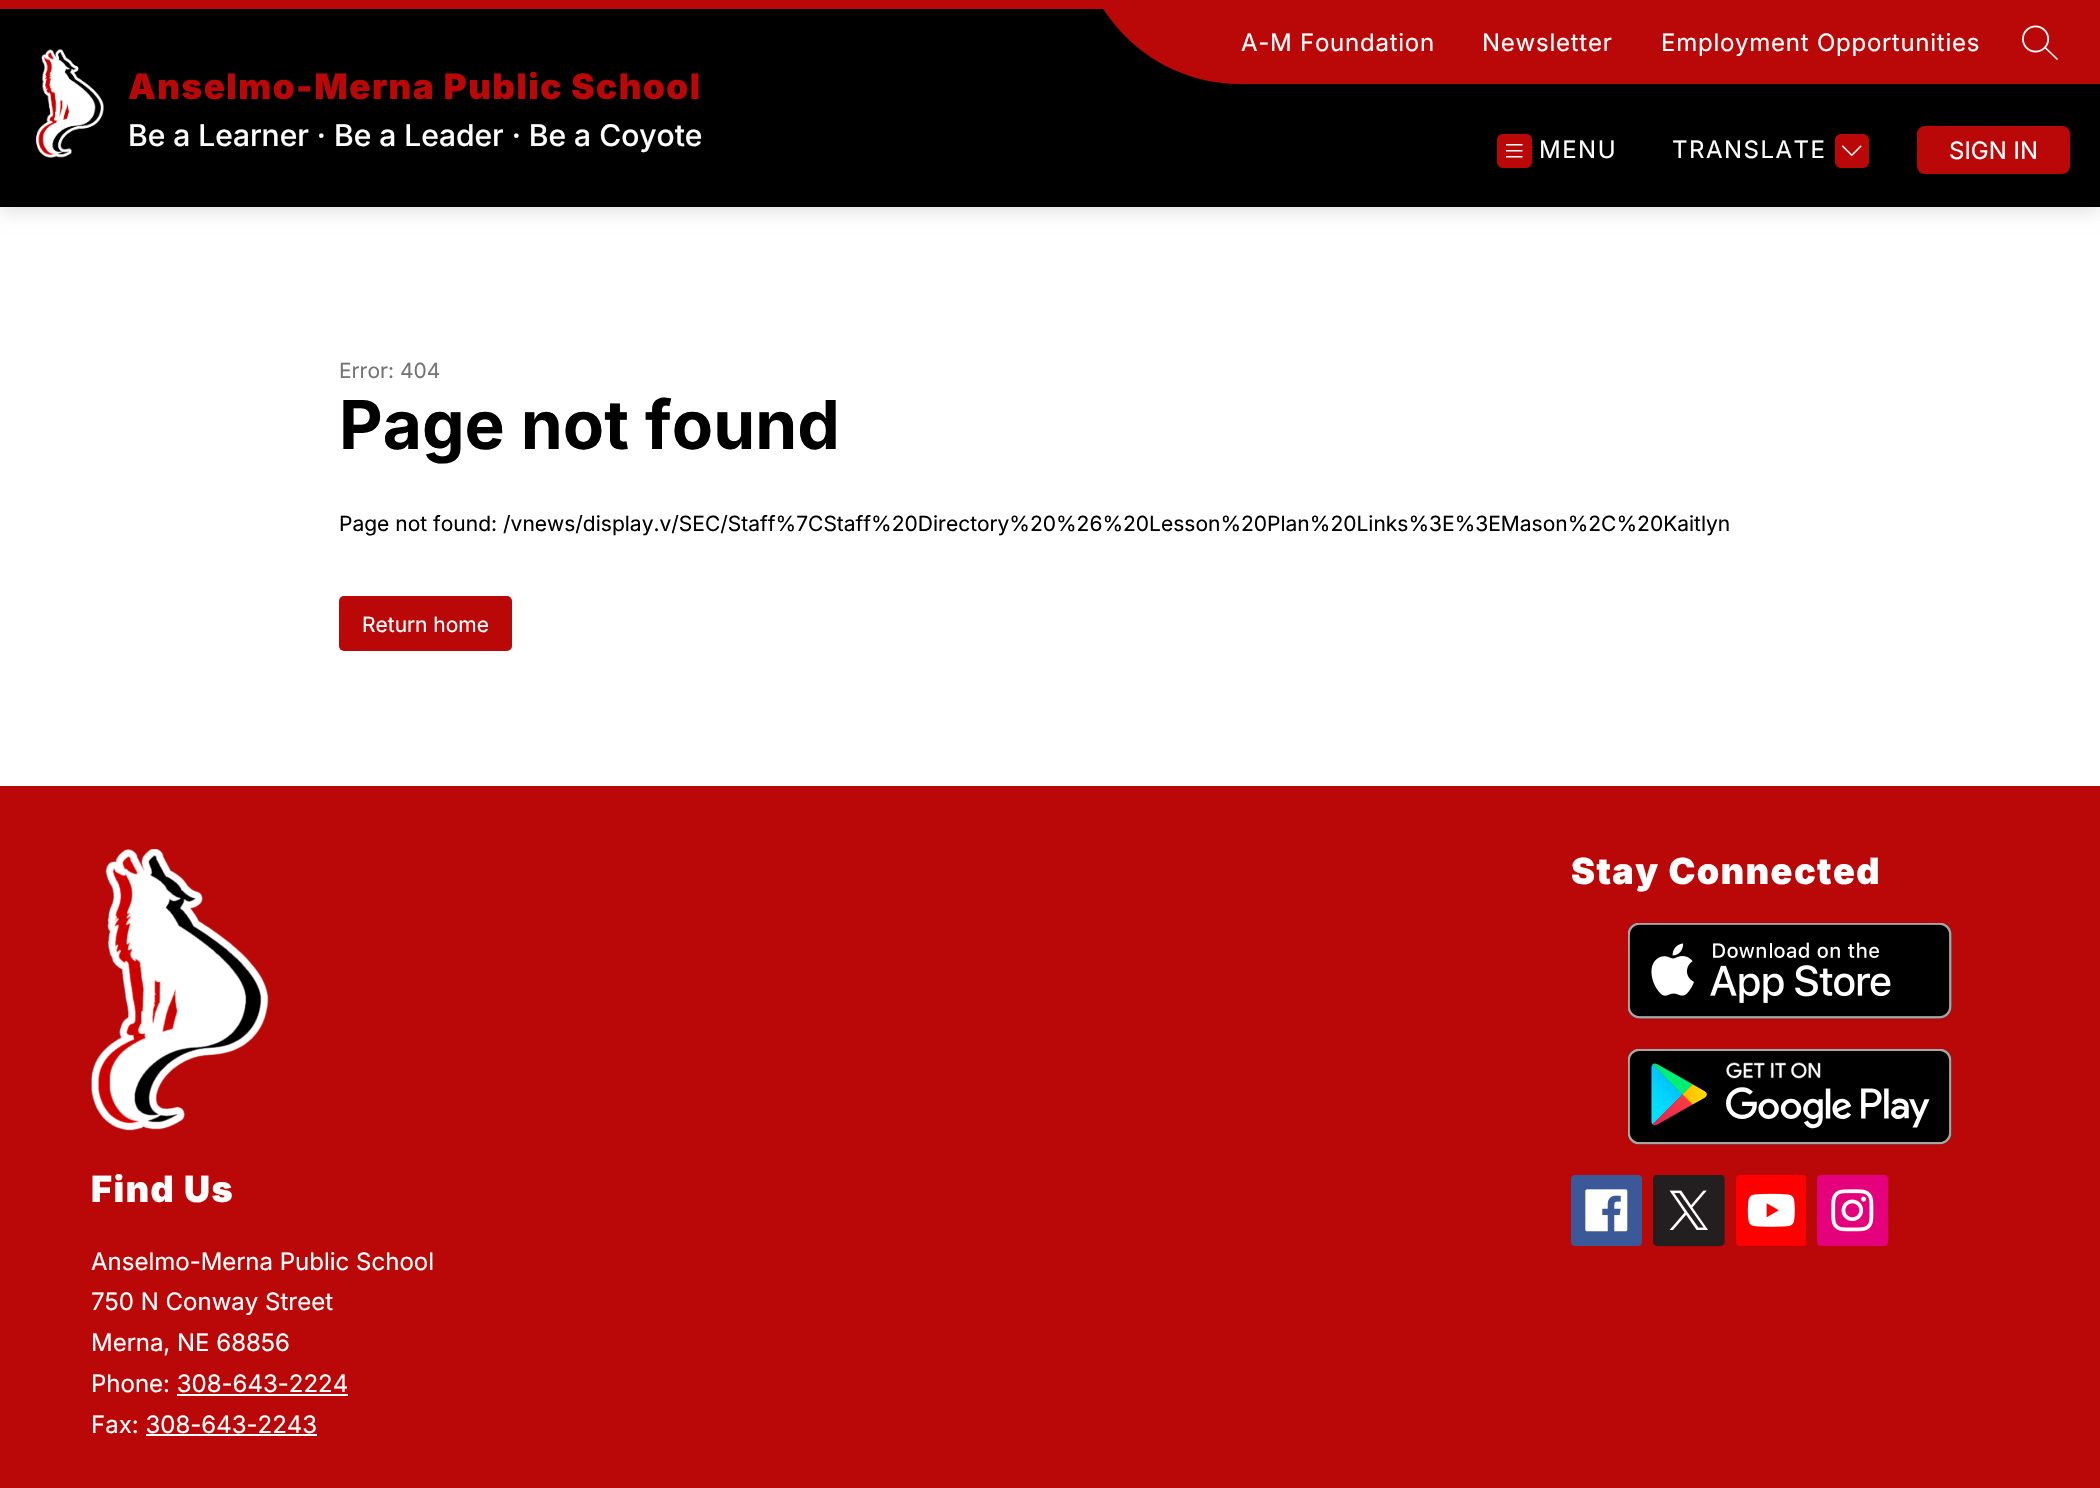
void draw(SkCanvas* canvas) {
    SkPaint paint;
    paint.setAntiAlias(true);
    auto face = [&](const char* family, int weight, float size, bool italic = false) {
        SkFontStyle style(weight, SkFontStyle::kNormal_Width,
            italic ? SkFontStyle::kItalic_Slant : SkFontStyle::kUpright_Slant);
        SkFont result(fontMgr->matchFamilyStyle(family, style), size);
        result.setSubpixel(true);
        return result;
    };
    auto write = [&](const char* s, float x, float y, const SkFont& font, SkColor color) {
        SkPaint ink(SkColor4f::FromColor(color));
        ink.setAntiAlias(true);
        canvas->drawString(s, x, y, font, ink);
    };
    auto writeSpaced = [&](const char* s, float x, float y, const SkFont& font, const SkPaint& ink, float letter, float word) {
        std::vector<SkGlyphID> glyphs(font.countText(s, strlen(s), SkTextEncoding::kUTF8));
        std::vector<float> xs(glyphs.size());
        font.textToGlyphs(s, strlen(s), SkTextEncoding::kUTF8, glyphs);
        font.getXPos(glyphs, xs, x);
        float extra = 0;
        for (size_t i = 0; i < glyphs.size(); i++) {
            xs[i] += extra;
            extra += letter + word * (glyphs[i] == font.unicharToGlyph(' '));
        }
        canvas->drawTextBlob(SkTextBlob::MakeFromPosHGlyphs(glyphs, xs, y, font), 0, 0, ink);
    };
    auto block = [&](float x, float y, float w, float h, SkColor color) {
        SkPaint ink(SkColor4f::FromColor(color));
        ink.setAntiAlias(true);
        canvas->drawRect(SkRect::MakeXYWH(x, y, w, h), ink);
    };
    auto card = [&](float x, float y, float w, float h, float radius, SkColor color) {
        SkPaint ink(SkColor4f::FromColor(color));
        ink.setAntiAlias(true);
        canvas->drawRoundRect(SkRect::MakeXYWH(x, y, w, h), radius, radius, ink);
    };
    auto paste = [&](const char* path, float x, float y, float w, float h) {
        auto image = SkImages::DeferredFromEncodedData(SkData::MakeFromFileName(path));
        canvas->drawImageRect(image, SkRect::MakeXYWH(x, y, w, h), SkSamplingOptions());
    };
    canvas->clear(SK_ColorWHITE);
    paint.setColor(SkColorSetARGB(26, 0, 0, 0));
    paint.setMaskFilter(SkMaskFilter::MakeBlur(kNormal_SkBlurStyle, 7.5f));
    canvas->drawRect(SkRect::MakeXYWH(0, 6, 2100, 207), paint);
    paint.setMaskFilter(nullptr);
    block(0, 9, 2100, 198, SK_ColorBLACK);
    block(0, 0, 1103, 9, SkColorSetRGB(186, 8, 8));
    paste("pic1.png", 36, 49, 68, 109);
    auto kFont1 = face("Inter", 900, 35);
    paint.setColor(SkColorSetRGB(186, 8, 8));
    writeSpaced("Anselmo-Merna Public School", 128, 99, kFont1, paint, 1.5f, 0);
    auto kFont2 = face("Inter", 500, 30);
    write("Be a Learner · Be a Leader · Be a Coyote", 128, 146, kFont2, SK_ColorWHITE);
    block(1244, 0, 856, 84, SkColorSetRGB(186, 8, 8));
    canvas->drawPath(SkPathBuilder().moveTo(1240, 84).lineTo(1244, 84).lineTo(1244, 0).lineTo(1100, 0).cubicTo(1098, 0, 1098, 1, 1098, 2).lineTo(1108, 16).cubicTo(1139, 59, 1188, 84, 1240, 84).close().detach(), paint);
    auto kFont3 = face("Inter", 400, 24);
    paint.setColor(SK_ColorWHITE);
    writeSpaced("A-M Foundation", 1241, 51, kFont3, paint, 0.75f, 0);
    writeSpaced("Newsletter", 1482, 51, kFont3, paint, 0.75f, 0);
    writeSpaced("Employment Opportunities", 1661, 51, kFont3, paint, 0.75f, 0);
    paste("pic2.png", 2022, 25, 36, 35);
    paste("pic3.png", 1497, 134, 35, 34);
    writeSpaced("MENU", 1539, 158, kFont3, paint, 1.5f, 0);
    writeSpaced("TRANSLATE", 1672, 158, kFont3, paint, 1.5f, 0);
    paste("pic4.png", 1835, 134, 34, 34);
    paint.setColor(SkColorSetRGB(186, 8, 8));
    canvas->drawRoundRect(SkRect::MakeXYWH(1918, 127, 151, 46), 7, 7, paint);
    paint.setStyle(SkPaint::kStroke_Style);
    paint.setStrokeWidth(2);
    canvas->drawRoundRect(SkRect::MakeXYWH(1918, 127, 151, 46), 7, 7, paint);
    write("SIGN IN", 1949, 159, kFont3, SK_ColorWHITE);
    auto kFont4 = face("Inter", 400, 21);
    write("Error: 404", 339, 378, kFont4, SkColorSetRGB(116, 116, 116));
    auto kFont5 = face("Inter", 700, 67.5f);
    write("Page not found", 339, 449, kFont5, SK_ColorBLACK);
    write("Page not found: /vnews/display.v/SEC/Staff%7CStaff%20Directory%20%26%20Lesson%20Plan%20Links%3E%3EMason%2C%20Kaitlyn", 339, 531, kFont4, SK_ColorBLACK);
    card(339, 596, 173, 55, 5, SkColorSetRGB(186, 8, 8));
    write("Return home", 362, 632, kFont4, SK_ColorWHITE);
    block(0, 786, 2100, 702, SkColorSetRGB(186, 8, 8));
    auto kFont6 = face("Inter", 900, 36);
    paint.setStyle(SkPaint::kFill_Style);
    paint.setColor(SK_ColorWHITE);
    writeSpaced("Stay Connected", 1571, 884, kFont6, paint, 1.5f, 0);
    paste("pic5.png", 1628, 923, 324, 96);
    paste("pic6.png", 1628, 1049, 324, 96);
    paste("pic7.png", 1571, 1175, 71, 71);
    paste("pic8.png", 1653, 1175, 72, 72);
    paste("pic9.png", 1736, 1175, 70, 71);
    paste("pic10.png", 1817, 1175, 71, 71);
    paste("pic11.png", 91, 849, 178, 282);
    writeSpaced("Find Us", 91, 1202, kFont6, paint, 1.5f, 0);
    write("Anselmo-Merna Public School", 91, 1270, kFont3, SK_ColorWHITE);
    write("750 N Conway Street", 91, 1310, kFont3, SK_ColorWHITE);
    write("Merna, NE 68856", 91, 1351, kFont3, SK_ColorWHITE);
    write("Phone: 308-643-2224", 91, 1392, kFont3, SK_ColorWHITE);
    block(177, 1394, 171, 2, SK_ColorWHITE);
    write("Fax: 308-643-2243", 91, 1433, kFont3, SK_ColorWHITE);
    block(146, 1434, 171, 2, SK_ColorWHITE);
}
